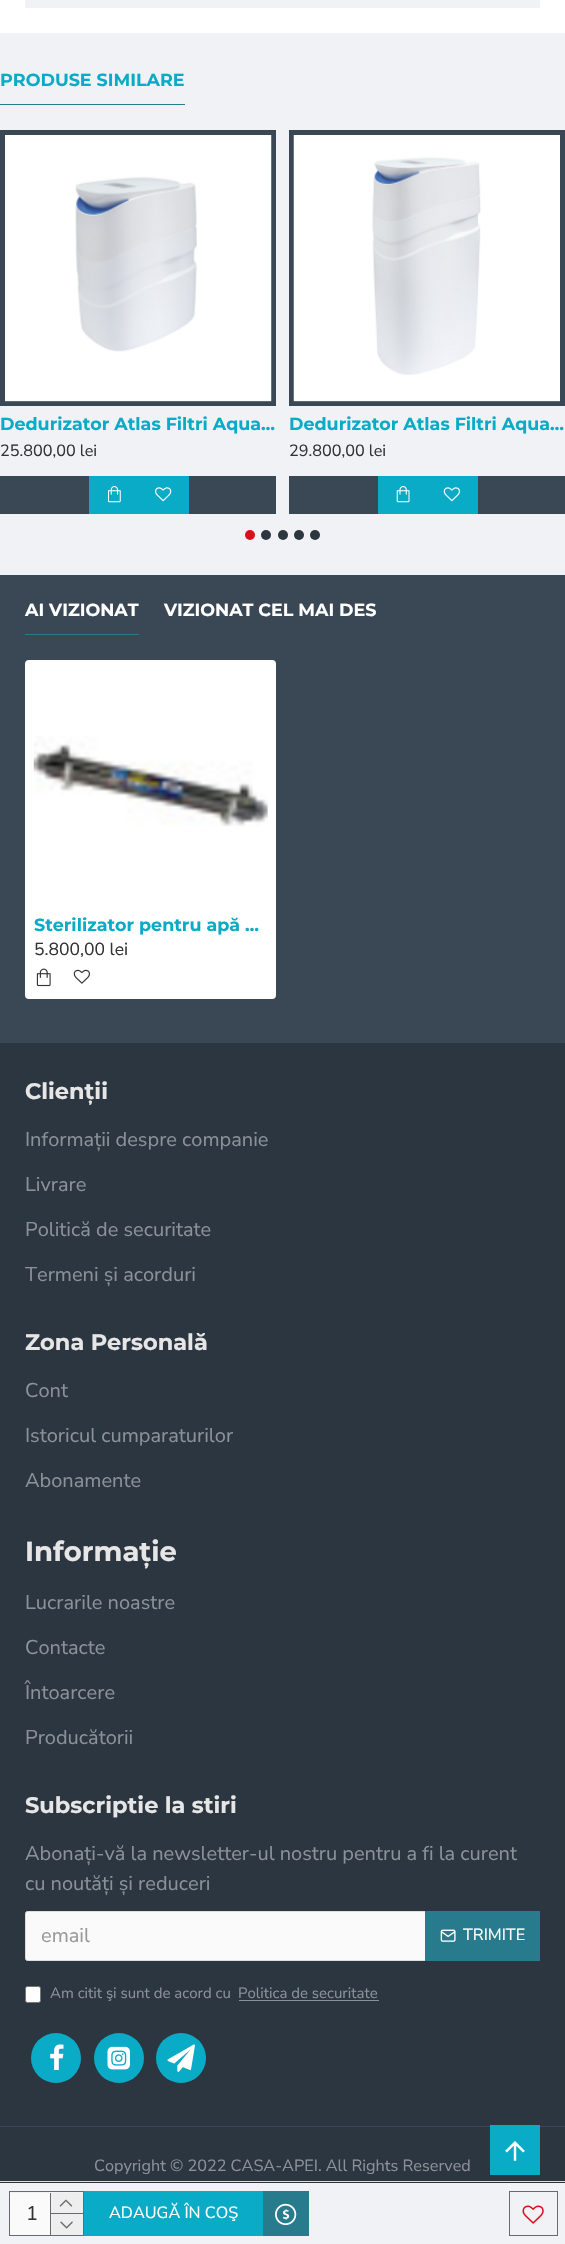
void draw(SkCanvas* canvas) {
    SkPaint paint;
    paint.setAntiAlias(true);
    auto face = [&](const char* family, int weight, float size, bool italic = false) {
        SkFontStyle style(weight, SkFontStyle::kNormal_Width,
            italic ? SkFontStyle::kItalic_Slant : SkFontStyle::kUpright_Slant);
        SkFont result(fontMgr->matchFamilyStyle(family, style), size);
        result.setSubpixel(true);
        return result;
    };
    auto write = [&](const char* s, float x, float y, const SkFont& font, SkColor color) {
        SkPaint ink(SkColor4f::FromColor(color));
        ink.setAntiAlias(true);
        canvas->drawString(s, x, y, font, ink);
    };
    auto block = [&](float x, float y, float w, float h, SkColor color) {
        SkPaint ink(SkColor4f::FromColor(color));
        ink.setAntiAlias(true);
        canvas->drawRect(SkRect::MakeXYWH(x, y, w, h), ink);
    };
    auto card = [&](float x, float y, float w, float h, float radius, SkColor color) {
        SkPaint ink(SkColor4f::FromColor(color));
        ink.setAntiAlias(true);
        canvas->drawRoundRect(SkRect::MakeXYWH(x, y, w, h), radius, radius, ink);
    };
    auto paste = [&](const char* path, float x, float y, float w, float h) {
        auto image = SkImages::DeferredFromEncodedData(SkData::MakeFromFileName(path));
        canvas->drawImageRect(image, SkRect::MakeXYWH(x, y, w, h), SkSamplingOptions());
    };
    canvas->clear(SK_ColorWHITE);
    block(0, 33, 565, 542, SkColorSetRGB(240, 242, 245));
    block(0, 104, 185, 1, SkColorSetRGB(39, 123, 140));
    auto kFont1 = face("Montserrat", 700, 17.5f);
    write("PRODUSE SIMILARE", 0, 86, kFont1, SkColorSetRGB(10, 171, 198));
    paint.setStyle(SkPaint::kStroke_Style);
    paint.setStrokeWidth(5);
    paint.setColor(SkColorSetRGB(58, 71, 84));
    canvas->drawRect(SkRect::MakeXYWH(2.5f, 132.5f, 271, 271), paint);
    paste("pic1.png", 5, 135, 267, 267);
    write("Dedurizator Atlas Filtri Aqua…", 0, 430, kFont1, SkColorSetRGB(10, 171, 198));
    auto kFont2 = face("Nunito Sans", 400, 16.25f);
    write("25.800,00 lei", 0, 456, kFont2, SkColorSetRGB(51, 51, 51));
    block(0, 476, 276, 38, SkColorSetRGB(58, 71, 84));
    block(89, 476, 100, 38, SkColorSetRGB(10, 171, 198));
    paste("pic2.png", 108, 486, 13, 17);
    paste("pic3.png", 155, 487, 17, 15);
    canvas->drawRect(SkRect::MakeXYWH(291.5f, 132.5f, 271, 271), paint);
    paste("pic4.png", 293, 135, 267, 267);
    write("Dedurizator Atlas Filtri Aqua…", 289, 430, kFont1, SkColorSetRGB(10, 171, 198));
    write("29.800,00 lei", 289, 456, kFont2, SkColorSetRGB(51, 51, 51));
    block(289, 476, 276, 38, SkColorSetRGB(58, 71, 84));
    block(378, 476, 100, 38, SkColorSetRGB(10, 171, 198));
    paste("pic5.png", 396, 486, 14, 17);
    paste("pic6.png", 443, 487, 17, 15);
    paint.setStyle(SkPaint::kFill_Style);
    paint.setColor(SkColorSetRGB(221, 14, 28));
    canvas->drawCircle(250, 535, 5, paint);
    paint.setColor(SkColorSetRGB(44, 54, 64));
    canvas->drawCircle(266, 535, 5, paint);
    canvas->drawCircle(283, 535, 5, paint);
    canvas->drawCircle(299, 535, 5, paint);
    canvas->drawCircle(315, 535, 5, paint);
    block(0, 1043, 565, 1140, SkColorSetRGB(44, 54, 64));
    block(0, 575, 565, 468, SkColorSetRGB(58, 71, 84));
    block(25, 634, 114, 1, SkColorSetRGB(39, 123, 140));
    write("AI VIZIONAT", 25, 616, kFont1, SK_ColorWHITE);
    write("VIZIONAT CEL MAI DES", 164, 616, kFont1, SK_ColorWHITE);
    card(25, 660, 251, 339, 4, SK_ColorWHITE);
    paste("pic7.png", 33, 736, 235, 91);
    write("Sterilizator pentru apă …", 34, 931, kFont1, SkColorSetRGB(10, 171, 198));
    auto kFont3 = face("Nunito Sans", 400, 17.5f);
    write("5.800,00 lei", 34, 955, kFont3, SkColorSetRGB(51, 51, 51));
    paste("pic8.png", 36, 968, 15, 19);
    paste("pic9.png", 73, 969, 17, 15);
    auto kFont4 = face("Montserrat", 700, 22.5f);
    write("Clienții", 25, 1099, kFont4, SkColorSetRGB(230, 230, 230));
    auto kFont5 = face("Nunito Sans", 400, 20);
    write("Informații despre companie", 25, 1146, kFont5, SkColorSetRGB(139, 145, 152));
    write("Livrare", 25, 1191, kFont5, SkColorSetRGB(139, 145, 152));
    write("Politică de securitate", 25, 1236, kFont5, SkColorSetRGB(139, 145, 152));
    write("Termeni și acorduri", 25, 1281, kFont5, SkColorSetRGB(139, 145, 152));
    write("Zona Personală", 25, 1350, kFont4, SkColorSetRGB(230, 230, 230));
    write("Cont", 25, 1397, kFont5, SkColorSetRGB(139, 145, 152));
    write("Istoricul cumparaturilor", 25, 1442, kFont5, SkColorSetRGB(139, 145, 152));
    write("Abonamente", 25, 1487, kFont5, SkColorSetRGB(139, 145, 152));
    auto kFont6 = face("Montserrat", 700, 27.5f);
    write("Informație", 25, 1561, kFont6, SkColorSetRGB(230, 230, 230));
    write("Lucrarile noastre", 25, 1609, kFont5, SkColorSetRGB(139, 145, 152));
    write("Contacte", 25, 1654, kFont5, SkColorSetRGB(139, 145, 152));
    write("Întoarcere", 25, 1699, kFont5, SkColorSetRGB(139, 145, 152));
    write("Producătorii", 25, 1744, kFont5, SkColorSetRGB(139, 145, 152));
    write("Subscriptie la stiri", 25, 1813, kFont4, SkColorSetRGB(230, 230, 230));
    write("Abonați-vă la newsletter-ul nostru pentru a fi la curent", 25, 1860, kFont5, SkColorSetRGB(139, 145, 152));
    write("cu noutăți și reduceri", 25, 1890, kFont5, SkColorSetRGB(139, 145, 152));
    paint.setColor(SkColorSetRGB(250, 250, 250));
    canvas->drawRoundRect(SkRect::MakeXYWH(25.5f, 1911.5f, 514, 49), 2, 2, paint);
    paint.setStyle(SkPaint::kStroke_Style);
    paint.setStrokeWidth(1);
    paint.setColor(SkColorSetRGB(221, 221, 221));
    canvas->drawRoundRect(SkRect::MakeXYWH(25.5f, 1911.5f, 514, 49), 2, 2, paint);
    write("email", 41, 1942, kFont5, SkColorSetRGB(153, 153, 153));
    block(425, 1911, 115, 50, SkColorSetRGB(39, 123, 140));
    paste("pic10.png", 440, 1929, 16, 13);
    write("TRIMITE", 463, 1940, kFont2, SK_ColorWHITE);
    paint.setStyle(SkPaint::kFill_Style);
    paint.setColor(SK_ColorWHITE);
    canvas->drawRoundRect(SkRect::MakeXYWH(25.5f, 1986.5f, 15, 16), 2, 2, paint);
    paint.setStyle(SkPaint::kStroke_Style);
    paint.setColor(SkColorSetRGB(118, 118, 118));
    canvas->drawRoundRect(SkRect::MakeXYWH(25.5f, 1986.5f, 15, 16), 2, 2, paint);
    auto kFont7 = face("Nunito Sans", 400, 15);
    write("Am citit şi sunt de acord cu", 50, 1998, kFont7, SkColorSetRGB(139, 145, 152));
    write("Politica de securitate", 238, 1998, kFont7, SkColorSetRGB(139, 145, 152));
    block(239, 2000, 140, 1, SkColorSetRGB(139, 145, 152));
    paint.setStyle(SkPaint::kFill_Style);
    paint.setColor(SkColorSetRGB(10, 171, 198));
    canvas->drawCircle(56, 2058, 25, paint);
    paste("pic11.png", 50, 2044, 14, 26);
    canvas->drawCircle(119, 2058, 25, paint);
    paste("pic12.png", 107, 2046, 23, 24);
    canvas->drawCircle(181, 2058, 25, paint);
    paste("pic13.png", 167, 2044, 28, 28);
    block(0, 2126, 565, 1, SkColorSetRGB(58, 71, 84));
    write("Copyright © 2022 CASA-APEI. All Rights Reserved", 94, 2171, kFont2, SkColorSetRGB(139, 145, 152));
    block(25, 0, 515, 8, SkColorSetRGB(240, 242, 245));
    block(0, 2183, 565, 61, SkColorSetRGB(240, 242, 245));
    block(0, 2181, 565, 1, SkColorSetRGB(221, 221, 221));
    paint.setStyle(SkPaint::kStroke_Style);
    paint.setColor(SkColorSetRGB(105, 105, 115));
    canvas->drawRect(SkRect::MakeXYWH(9.5f, 2191.5f, 74, 44), paint);
    block(10, 2193, 40, 42, SkColorSetRGB(250, 250, 250));
    write("1", 26, 2220, kFont5, SkColorSetRGB(51, 51, 51));
    block(50, 2193, 1, 42, SkColorSetRGB(105, 105, 115));
    block(51, 2193, 32, 20, SkColorSetRGB(238, 238, 238));
    block(51, 2213, 32, 1, SkColorSetRGB(105, 105, 115));
    paste("pic14.png", 59, 2199, 14, 8);
    block(51, 2214, 32, 21, SkColorSetRGB(238, 238, 238));
    paste("pic15.png", 60, 2221, 13, 8);
    block(84, 2191, 179, 45, SkColorSetRGB(10, 171, 198));
    write("ADAUGĂ ÎN COŞ", 109, 2218, kFont2, SK_ColorWHITE);
    block(263, 2191, 46, 45, SkColorSetRGB(39, 123, 140));
    paste("pic16.png", 275, 2203, 22, 23);
    canvas->drawRect(SkRect::MakeXYWH(509.5f, 2191.5f, 48, 44), paint);
    paste("pic17.png", 522, 2205, 22, 19);
    block(490, 2125, 50, 50, SkColorSetRGB(10, 171, 198));
    paste("pic18.png", 505, 2141, 20, 20);
}
